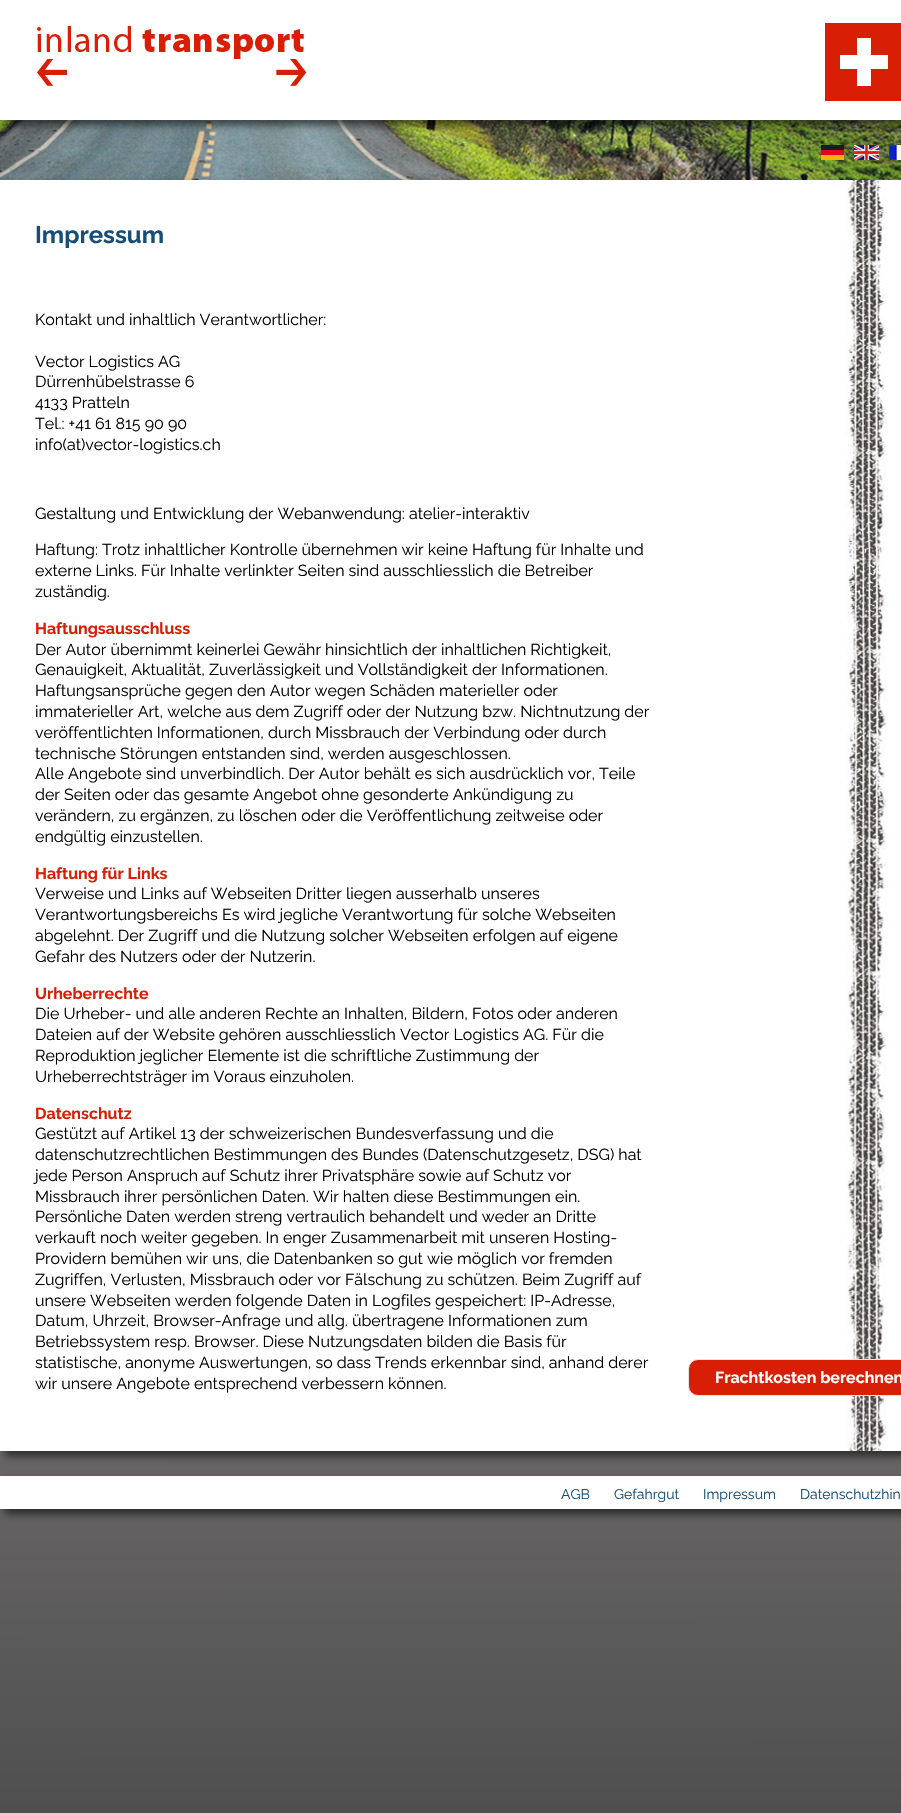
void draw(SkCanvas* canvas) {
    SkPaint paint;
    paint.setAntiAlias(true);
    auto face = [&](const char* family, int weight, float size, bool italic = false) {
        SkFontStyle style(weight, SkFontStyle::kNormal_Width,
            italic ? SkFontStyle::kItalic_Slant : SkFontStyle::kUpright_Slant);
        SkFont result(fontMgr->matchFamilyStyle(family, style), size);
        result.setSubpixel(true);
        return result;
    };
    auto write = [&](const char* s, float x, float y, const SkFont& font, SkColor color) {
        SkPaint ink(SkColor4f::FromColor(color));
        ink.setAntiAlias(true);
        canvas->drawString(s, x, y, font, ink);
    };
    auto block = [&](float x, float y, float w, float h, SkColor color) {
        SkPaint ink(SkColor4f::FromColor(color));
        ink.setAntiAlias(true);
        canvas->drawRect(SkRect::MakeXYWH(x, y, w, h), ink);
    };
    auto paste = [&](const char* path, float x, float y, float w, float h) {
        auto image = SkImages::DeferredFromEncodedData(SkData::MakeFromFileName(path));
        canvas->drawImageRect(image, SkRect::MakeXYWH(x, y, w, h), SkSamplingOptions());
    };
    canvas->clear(SK_ColorWHITE);
    {
        const SkColor colors[] = {SkColorSetRGB(196, 193, 191), SkColorSetRGB(80, 79, 79)};
        const float stops[] = {0, 1};
        const SkPoint ends[] = {{450, 0}, {451, 1813}};
        paint.setShader(SkGradientShader::MakeLinear(ends, colors, stops, 2, SkTileMode::kClamp));
        paint.setAlpha(255);
    }
    canvas->drawRect(SkRect::MakeXYWH(0, 1451, 901, 362), paint);
    paste("pic5.png", 0, 120, 901, 60);
    paint.setShader(nullptr);
    paint.setColor(SkColorSetARGB(148, 0, 0, 0));
    paint.setMaskFilter(SkMaskFilter::MakeBlur(kNormal_SkBlurStyle, 4));
    canvas->drawRect(SkRect::MakeXYWH(5, 5, 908, 120), paint);
    paint.setMaskFilter(nullptr);
    block(0, 0, 901, 120, SK_ColorWHITE);
    paste("pic1.png", 37, 26, 270, 60);
    block(825, 23, 76, 78, SkColorSetRGB(216, 30, 5));
    paint.setColor(SK_ColorWHITE);
    canvas->drawPath(SkPathBuilder().moveTo(857, 38).lineTo(871, 38).lineTo(871, 55).lineTo(888, 55).lineTo(888, 69).lineTo(871, 69).lineTo(871, 86).lineTo(857, 86).lineTo(857, 69).lineTo(840, 69).lineTo(840, 55).lineTo(857, 55).close().detach(), paint);
    paste("pic2.png", 821, 145, 23, 15);
    paste("pic3.png", 854, 145, 25, 15);
    paste("pic4.png", 889, 145, 12, 15);
    paint.setColor(SkColorSetARGB(148, 0, 0, 0));
    paint.setMaskFilter(SkMaskFilter::MakeBlur(kNormal_SkBlurStyle, 4));
    canvas->drawRect(SkRect::MakeXYWH(5, 185, 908, 1271), paint);
    paint.setMaskFilter(nullptr);
    block(0, 180, 901, 1271, SK_ColorWHITE);
    paste("pic6.png", 846, 180, 41, 1271);
    auto kFont1 = face("Raleway", 700, 24);
    write("Impressum", 35, 243, kFont1, SkColorSetRGB(23, 78, 117));
    auto kFont2 = face("Raleway", 400, 16);
    write("Kontakt und inhaltlich Verantwortlicher:", 35, 325, kFont2, SK_ColorBLACK);
    write("Vector Logistics AG", 35, 367, kFont2, SK_ColorBLACK);
    write("Dürrenhübelstrasse 6", 35, 387, kFont2, SK_ColorBLACK);
    write("4133 Pratteln", 35, 408, kFont2, SK_ColorBLACK);
    write("Tel.: +41 61 815 90 90", 35, 429, kFont2, SK_ColorBLACK);
    write("info(at)vector-logistics.ch", 35, 450, kFont2, SK_ColorBLACK);
    write("Gestaltung und Entwicklung der Webanwendung: atelier-interaktiv", 35, 519, kFont2, SK_ColorBLACK);
    write("Haftung: Trotz inhaltlicher Kontrolle übernehmen wir keine Haftung für Inhalte und", 35, 555, kFont2, SK_ColorBLACK);
    write("externe Links. Für Inhalte verlinkter Seiten sind ausschliesslich die Betreiber", 35, 576, kFont2, SK_ColorBLACK);
    write("zuständig.", 35, 597, kFont2, SK_ColorBLACK);
    auto kFont3 = face("Raleway", 700, 16);
    write("Haftungsausschluss", 35, 634, kFont3, SkColorSetRGB(216, 30, 5));
    write("Der Autor übernimmt keinerlei Gewähr hinsichtlich der inhaltlichen Richtigkeit,", 35, 655, kFont2, SK_ColorBLACK);
    write("Genauigkeit, Aktualität, Zuverlässigkeit und Vollständigkeit der Informationen.", 35, 675, kFont2, SK_ColorBLACK);
    write("Haftungsansprüche gegen den Autor wegen Schäden materieller oder", 35, 696, kFont2, SK_ColorBLACK);
    write("immaterieller Art, welche aus dem Zugriff oder der Nutzung bzw. Nichtnutzung der", 35, 717, kFont2, SK_ColorBLACK);
    write("veröffentlichten Informationen, durch Missbrauch der Verbindung oder durch", 35, 738, kFont2, SK_ColorBLACK);
    write("technische Störungen entstanden sind, werden ausgeschlossen.", 35, 759, kFont2, SK_ColorBLACK);
    write("Alle Angebote sind unverbindlich. Der Autor behält es sich ausdrücklich vor, Teile", 35, 779, kFont2, SK_ColorBLACK);
    write("der Seiten oder das gesamte Angebot ohne gesonderte Ankündigung zu", 35, 800, kFont2, SK_ColorBLACK);
    write("verändern, zu ergänzen, zu löschen oder die Veröffentlichung zeitweise oder", 35, 821, kFont2, SK_ColorBLACK);
    write("endgültig einzustellen.", 35, 842, kFont2, SK_ColorBLACK);
    write("Haftung für Links", 35, 879, kFont3, SkColorSetRGB(216, 30, 5));
    write("Verweise und Links auf Webseiten Dritter liegen ausserhalb unseres", 35, 899, kFont2, SK_ColorBLACK);
    write("Verantwortungsbereichs Es wird jegliche Verantwortung für solche Webseiten", 35, 920, kFont2, SK_ColorBLACK);
    write("abgelehnt. Der Zugriff und die Nutzung solcher Webseiten erfolgen auf eigene", 35, 941, kFont2, SK_ColorBLACK);
    write("Gefahr des Nutzers oder der Nutzerin.", 35, 962, kFont2, SK_ColorBLACK);
    write("Urheberrechte", 35, 999, kFont3, SkColorSetRGB(216, 30, 5));
    write("Die Urheber- und alle anderen Rechte an Inhalten, Bildern, Fotos oder anderen", 35, 1019, kFont2, SK_ColorBLACK);
    write("Dateien auf der Website gehören ausschliesslich Vector Logistics AG. Für die", 35, 1040, kFont2, SK_ColorBLACK);
    write("Reproduktion jeglicher Elemente ist die schriftliche Zustimmung der", 35, 1061, kFont2, SK_ColorBLACK);
    write("Urheberrechtsträger im Voraus einzuholen.", 35, 1082, kFont2, SK_ColorBLACK);
    write("Datenschutz", 35, 1119, kFont3, SkColorSetRGB(216, 30, 5));
    write("Gestützt auf Artikel 13 der schweizerischen Bundesverfassung und die", 35, 1139, kFont2, SK_ColorBLACK);
    write("datenschutzrechtlichen Bestimmungen des Bundes (Datenschutzgesetz, DSG) hat", 35, 1160, kFont2, SK_ColorBLACK);
    write("jede Person Anspruch auf Schutz ihrer Privatsphäre sowie auf Schutz vor", 35, 1181, kFont2, SK_ColorBLACK);
    write("Missbrauch ihrer persönlichen Daten. Wir halten diese Bestimmungen ein.", 35, 1202, kFont2, SK_ColorBLACK);
    write("Persönliche Daten werden streng vertraulich behandelt und weder an Dritte", 35, 1222, kFont2, SK_ColorBLACK);
    write("verkauft noch weiter gegeben. In enger Zusammenarbeit mit unseren Hosting-", 35, 1243, kFont2, SK_ColorBLACK);
    write("Providern bemühen wir uns, die Datenbanken so gut wie möglich vor fremden", 35, 1264, kFont2, SK_ColorBLACK);
    write("Zugriffen, Verlusten, Missbrauch oder vor Fälschung zu schützen. Beim Zugriff auf", 35, 1285, kFont2, SK_ColorBLACK);
    write("unsere Webseiten werden folgende Daten in Logfiles gespeichert: IP-Adresse,", 35, 1306, kFont2, SK_ColorBLACK);
    write("Datum, Uhrzeit, Browser-Anfrage und allg. übertragene Informationen zum", 35, 1326, kFont2, SK_ColorBLACK);
    write("Betriebssystem resp. Browser. Diese Nutzungsdaten bilden die Basis für", 35, 1347, kFont2, SK_ColorBLACK);
    write("statistische, anonyme Auswertungen, so dass Trends erkennbar sind, anhand derer", 35, 1368, kFont2, SK_ColorBLACK);
    write("wir unsere Angebote entsprechend verbessern können.", 35, 1389, kFont2, SK_ColorBLACK);
    paint.setColor(SkColorSetRGB(216, 30, 5));
    canvas->drawRoundRect(SkRect::MakeXYWH(688.5f, 1359.5f, 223, 36), 9.5f, 9.5f, paint);
    paint.setStyle(SkPaint::kStroke_Style);
    paint.setStrokeWidth(1);
    paint.setColor(SkColorSetRGB(228, 228, 228));
    canvas->drawRoundRect(SkRect::MakeXYWH(688.5f, 1359.5f, 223, 36), 9.5f, 9.5f, paint);
    write("Frachtkosten berechnen", 715, 1383, kFont3, SK_ColorWHITE);
    paint.setStyle(SkPaint::kFill_Style);
    paint.setColor(SkColorSetARGB(148, 0, 0, 0));
    paint.setMaskFilter(SkMaskFilter::MakeBlur(kNormal_SkBlurStyle, 4));
    canvas->drawRect(SkRect::MakeXYWH(5, 1481, 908, 33), paint);
    paint.setMaskFilter(nullptr);
    block(0, 1476, 901, 33, SK_ColorWHITE);
    auto kFont4 = face("Raleway", 400, 14);
    write("AGB", 561, 1499, kFont4, SkColorSetRGB(23, 78, 117));
    write("Gefahrgut", 614, 1499, kFont4, SkColorSetRGB(23, 78, 117));
    write("Impressum", 703, 1499, kFont4, SkColorSetRGB(23, 78, 117));
    write("Datenschutzhin", 800, 1499, kFont4, SkColorSetRGB(23, 78, 117));
}
